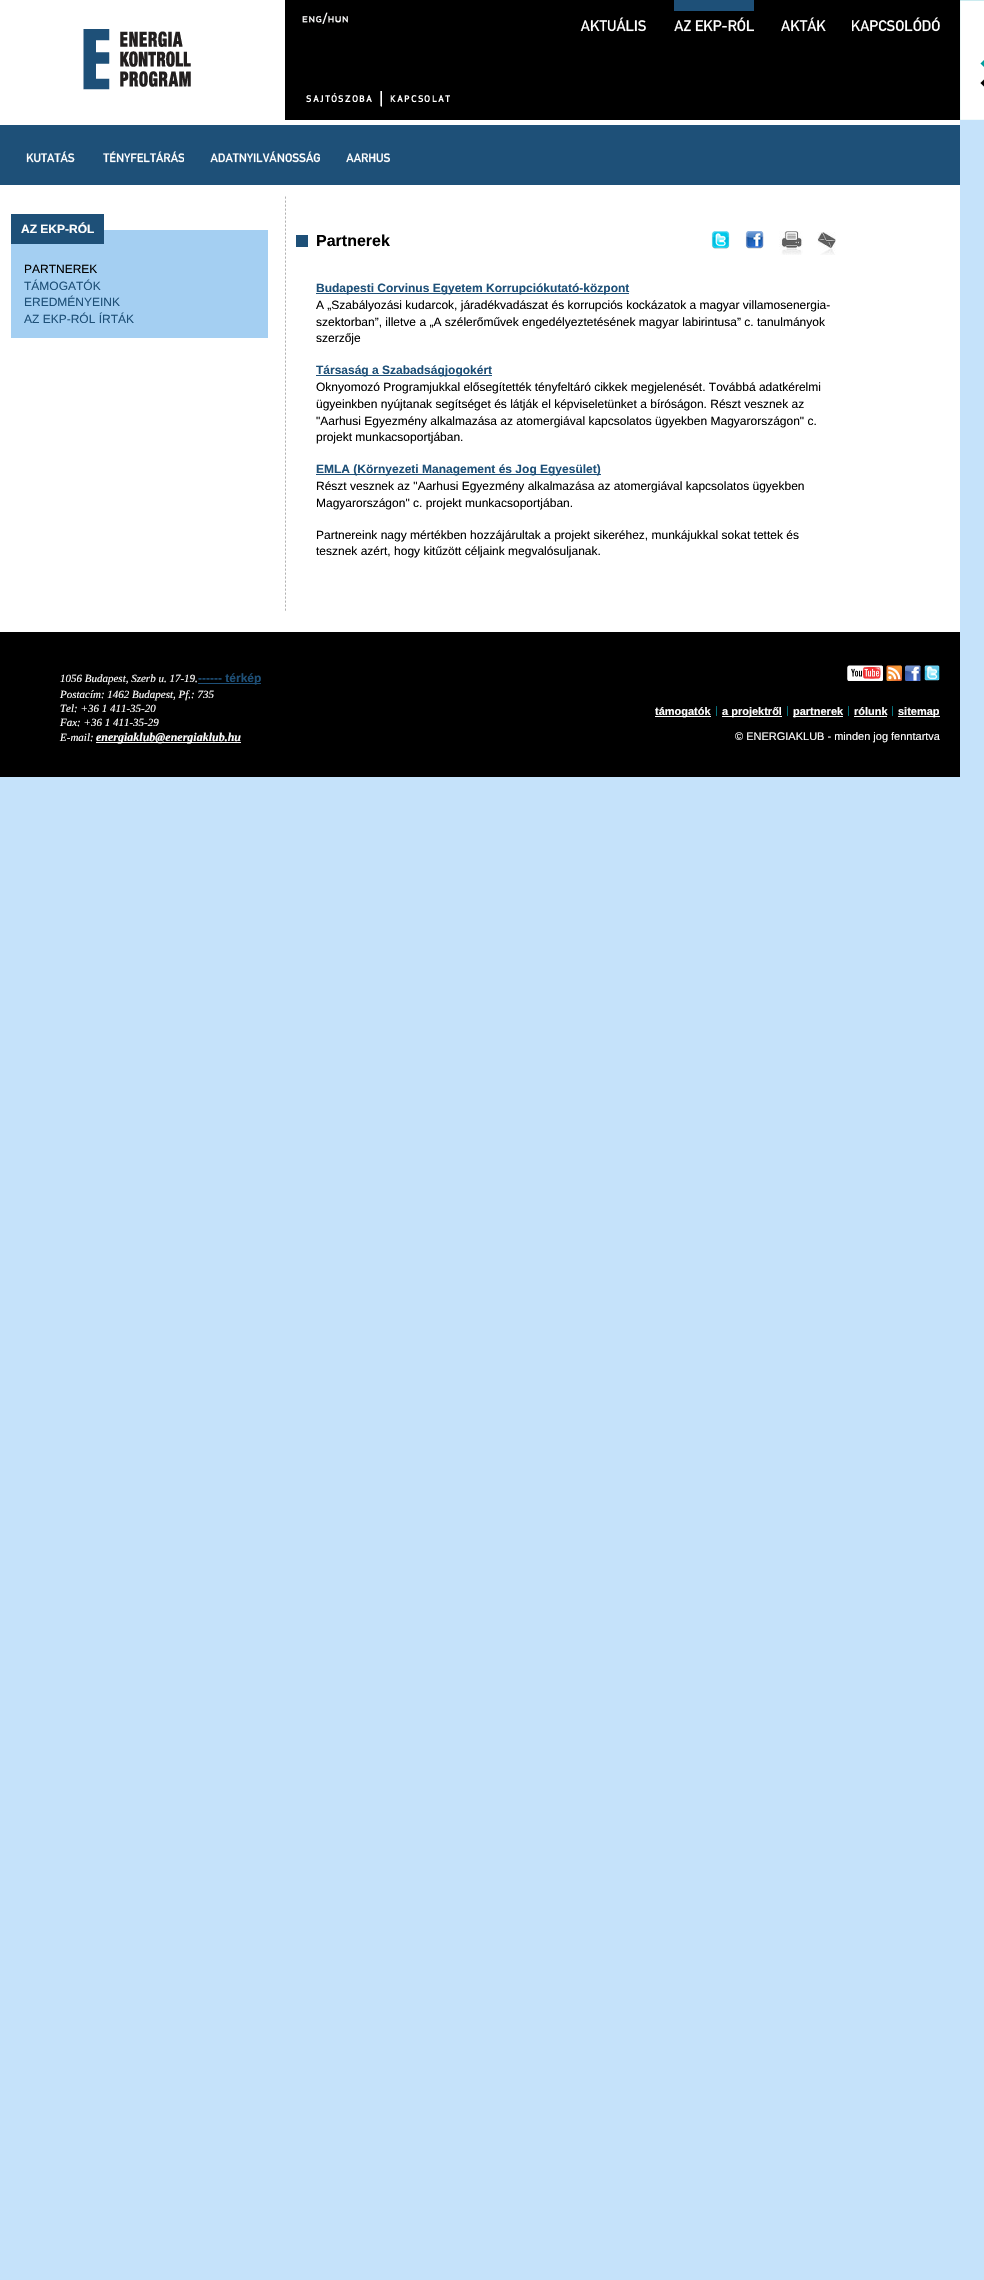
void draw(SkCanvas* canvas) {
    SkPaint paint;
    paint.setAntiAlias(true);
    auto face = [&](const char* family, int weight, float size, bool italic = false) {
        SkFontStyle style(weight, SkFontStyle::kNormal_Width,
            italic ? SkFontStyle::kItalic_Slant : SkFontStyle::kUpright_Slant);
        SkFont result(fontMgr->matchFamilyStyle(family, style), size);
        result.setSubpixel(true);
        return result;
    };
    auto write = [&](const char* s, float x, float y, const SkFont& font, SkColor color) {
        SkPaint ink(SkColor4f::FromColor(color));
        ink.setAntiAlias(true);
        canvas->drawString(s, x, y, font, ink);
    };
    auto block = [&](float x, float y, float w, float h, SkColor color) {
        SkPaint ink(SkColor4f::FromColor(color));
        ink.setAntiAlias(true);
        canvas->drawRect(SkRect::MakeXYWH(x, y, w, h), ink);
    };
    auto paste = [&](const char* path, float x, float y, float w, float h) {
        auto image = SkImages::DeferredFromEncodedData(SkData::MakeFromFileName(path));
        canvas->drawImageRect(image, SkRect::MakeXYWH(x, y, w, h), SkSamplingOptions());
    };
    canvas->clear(SkColorSetRGB(197, 226, 250));
    block(0, 120, 960, 512, SK_ColorWHITE);
    block(285, 0, 675, 120, SK_ColorBLACK);
    paste("pic1.png", 0, 0, 285, 120);
    paste("pic2.png", 302, 16, 23, 8);
    paste("pic3.png", 325, 12, 23, 11);
    paste("pic4.png", 580, 17, 66, 15);
    paste("pic5.png", 674, 0, 80, 32);
    paste("pic6.png", 781, 17, 45, 15);
    paste("pic7.png", 852, 17, 88, 15);
    paste("pic8.png", 306, 91, 76, 16);
    paste("pic9.png", 390, 95, 60, 8);
    paste("pic10.png", 960, 0, 24, 120);
    block(0, 125, 960, 60, SkColorSetRGB(30, 80, 120));
    paste("pic11.png", 26, 151, 49, 12);
    paste("pic12.png", 103, 151, 81, 12);
    paste("pic13.png", 210, 151, 110, 12);
    paste("pic14.png", 346, 153, 44, 10);
    paste("pic15.png", 285, 196, 1, 415);
    block(11, 230, 257, 108, SkColorSetRGB(164, 207, 242));
    block(11, 214, 93, 30, SkColorSetRGB(30, 80, 120));
    auto kFont1 = face("Liberation Sans", 700, 12);
    write("AZ EKP-RÓL", 21, 233, kFont1, SK_ColorWHITE);
    auto kFont2 = face("Liberation Sans", 400, 12);
    write("PARTNEREK", 24, 273, kFont2, SK_ColorBLACK);
    write("TÁMOGATÓK", 24, 290, kFont2, SkColorSetRGB(30, 80, 120));
    write("EREDMÉNYEINK", 24, 306, kFont2, SkColorSetRGB(30, 80, 120));
    write("AZ EKP-RÓL ÍRTÁK", 24, 323, kFont2, SkColorSetRGB(30, 80, 120));
    block(296, 235, 12, 12, SkColorSetRGB(30, 80, 120));
    auto kFont3 = face("Liberation Sans", 700, 16);
    write("Partnerek", 316, 246, kFont3, SK_ColorBLACK);
    paste("pic16.png", 711, 231, 19, 18);
    paste("pic17.png", 745, 231, 19, 18);
    paste("pic18.png", 779, 231, 24, 24);
    paste("pic19.png", 817, 232, 19, 23);
    block(316, 293, 313, 1, SkColorSetRGB(30, 80, 120));
    write("Budapesti Corvinus Egyetem Korrupciókutató-központ", 316, 292, kFont1, SkColorSetRGB(30, 80, 120));
    write("A „Szabályozási kudarcok, járadékvadászat és korrupciós kockázatok a magyar villamosenergia-", 316, 309, kFont2, SK_ColorBLACK);
    write("szektorban”, illetve a „A szélerőművek engedélyeztetésének magyar labirintusa” c. tanulmányok", 316, 326, kFont2, SK_ColorBLACK);
    write("szerzője", 316, 342, kFont2, SK_ColorBLACK);
    block(316, 375, 176, 1, SkColorSetRGB(30, 80, 120));
    write("Társaság a Szabadságjogokért", 316, 374, kFont1, SkColorSetRGB(30, 80, 120));
    write("Oknyomozó Programjukkal elősegítették tényfeltáró cikkek megjelenését. Továbbá adatkérelmi", 316, 391, kFont2, SK_ColorBLACK);
    write("ügyeinkben nyújtanak segítséget és látják el képviseletünket a bíróságon. Részt vesznek az", 316, 408, kFont2, SK_ColorBLACK);
    write("\"Aarhusi Egyezmény alkalmazása az atomergiával kapcsolatos ügyekben Magyarországon\" c.", 316, 425, kFont2, SK_ColorBLACK);
    write("projekt munkacsoportjában.", 316, 441, kFont2, SK_ColorBLACK);
    block(316, 474, 285, 1, SkColorSetRGB(30, 80, 120));
    write("EMLA (Környezeti Management és Jog Egyesület)", 316, 473, kFont1, SkColorSetRGB(30, 80, 120));
    write("Részt vesznek az \"Aarhusi Egyezmény alkalmazása az atomergiával kapcsolatos ügyekben", 316, 490, kFont2, SK_ColorBLACK);
    write("Magyarországon\" c. projekt munkacsoportjában.", 316, 507, kFont2, SK_ColorBLACK);
    write("Partnereink nagy mértékben hozzájárultak a projekt sikeréhez, munkájukkal sokat tettek és", 316, 539, kFont2, SK_ColorBLACK);
    write("tesznek azért, hogy kitűzött céljaink megvalósuljanak.", 316, 555, kFont2, SK_ColorBLACK);
    block(0, 632, 960, 145, SK_ColorBLACK);
    auto kFont4 = face("Liberation Serif", 400, 11, true);
    write("1056 Budapest, Szerb u. 17-19.", 60, 682, kFont4, SK_ColorWHITE);
    block(198, 683, 63, 1, SkColorSetRGB(30, 80, 120));
    write("------ térkép", 198, 682, kFont1, SkColorSetRGB(30, 80, 120));
    write("Postacím: 1462 Budapest, Pf.: 735", 60, 698, kFont4, SK_ColorWHITE);
    write("Tel: +36 1 411-35-20", 60, 712, kFont4, SK_ColorWHITE);
    write("Fax: +36 1 411-35-29", 60, 726, kFont4, SK_ColorWHITE);
    write("E-mail:", 60, 741, kFont4, SK_ColorWHITE);
    block(96, 742, 145, 1, SK_ColorWHITE);
    auto kFont5 = face("Liberation Serif", 700, 12, true);
    write("energiaklub@energiaklub.hu", 96, 741, kFont5, SK_ColorWHITE);
    paste("pic20.png", 847, 665, 36, 16);
    paste("pic21.png", 886, 665, 16, 16);
    paste("pic22.png", 905, 665, 16, 16);
    paste("pic23.png", 924, 665, 16, 16);
    paste("pic24.png", 716, 706, 1, 10);
    block(655, 716, 56, 1, SK_ColorWHITE);
    auto kFont6 = face("Liberation Sans", 700, 11);
    write("támogatók", 655, 715, kFont6, SK_ColorWHITE);
    paste("pic24.png", 787, 706, 1, 10);
    block(722, 716, 60, 1, SK_ColorWHITE);
    write("a projektről", 722, 715, kFont6, SK_ColorWHITE);
    paste("pic24.png", 848, 706, 1, 10);
    block(793, 716, 50, 1, SK_ColorWHITE);
    write("partnerek", 793, 715, kFont6, SK_ColorWHITE);
    paste("pic24.png", 892, 706, 1, 10);
    write("rólunk", 854, 715, kFont6, SK_ColorWHITE);
    block(854, 716, 33, 1, SK_ColorWHITE);
    block(898, 716, 42, 1, SK_ColorWHITE);
    write("sitemap", 898, 715, kFont6, SK_ColorWHITE);
    auto kFont7 = face("Liberation Sans", 400, 11);
    write("© ENERGIAKLUB - minden jog fenntartva", 735, 740, kFont7, SK_ColorWHITE);
}
